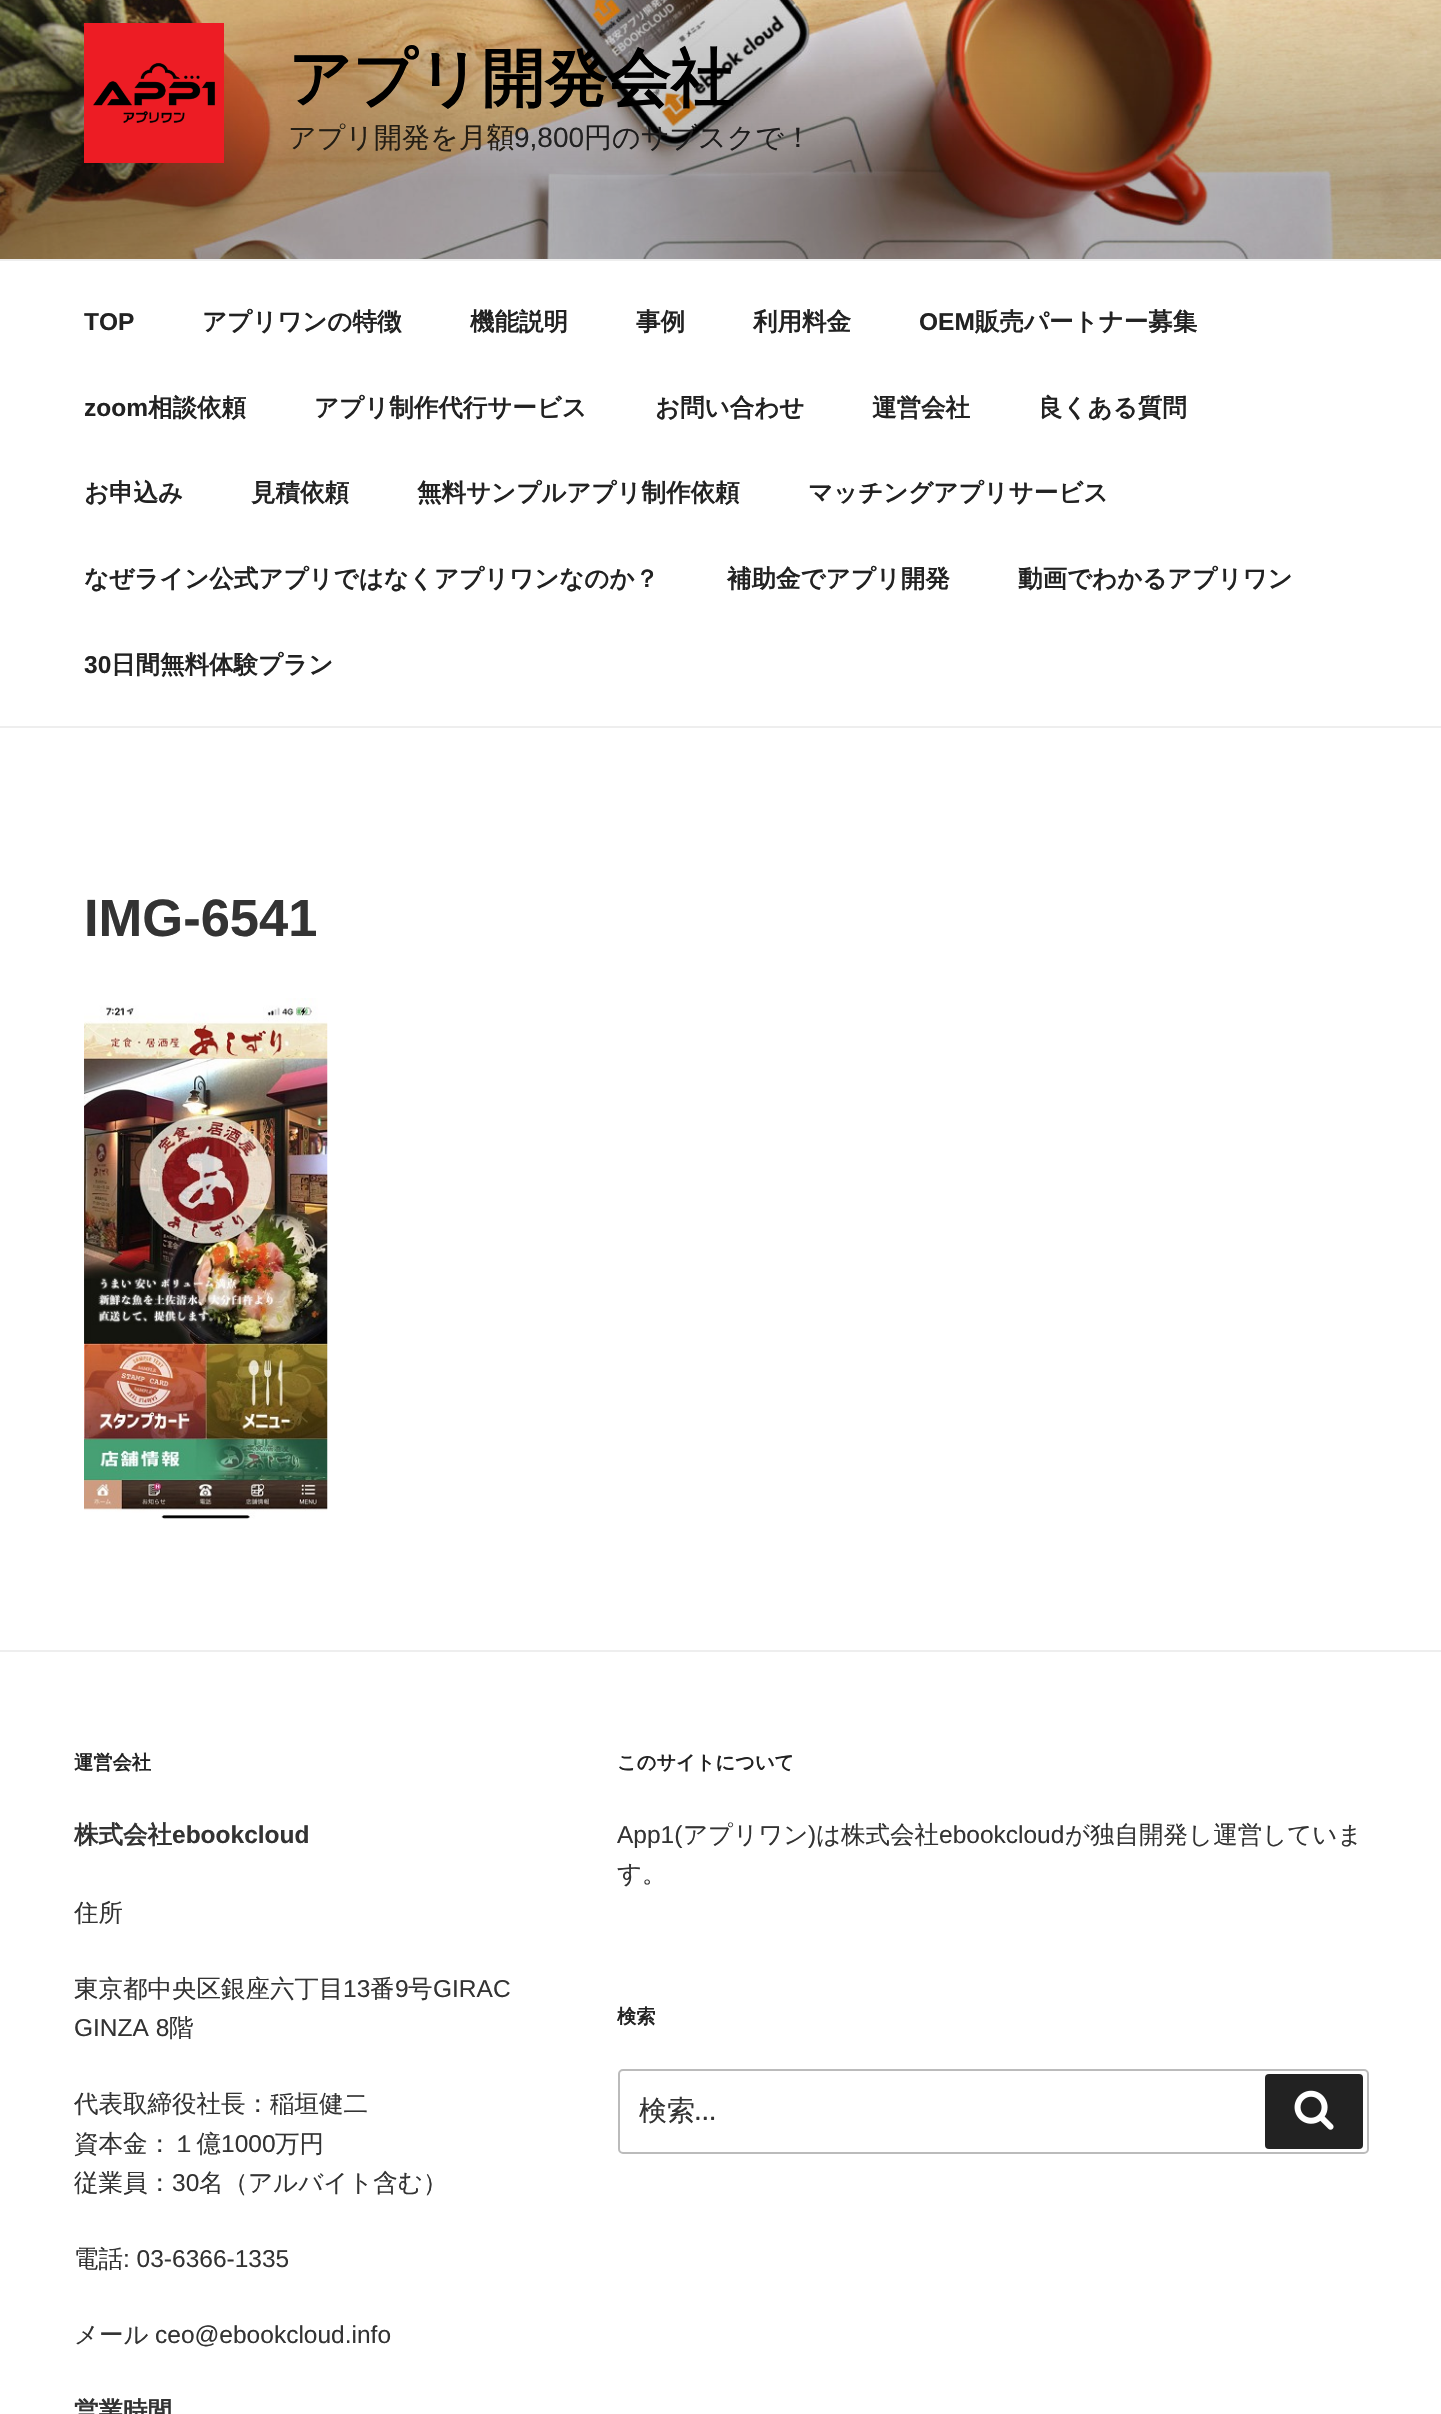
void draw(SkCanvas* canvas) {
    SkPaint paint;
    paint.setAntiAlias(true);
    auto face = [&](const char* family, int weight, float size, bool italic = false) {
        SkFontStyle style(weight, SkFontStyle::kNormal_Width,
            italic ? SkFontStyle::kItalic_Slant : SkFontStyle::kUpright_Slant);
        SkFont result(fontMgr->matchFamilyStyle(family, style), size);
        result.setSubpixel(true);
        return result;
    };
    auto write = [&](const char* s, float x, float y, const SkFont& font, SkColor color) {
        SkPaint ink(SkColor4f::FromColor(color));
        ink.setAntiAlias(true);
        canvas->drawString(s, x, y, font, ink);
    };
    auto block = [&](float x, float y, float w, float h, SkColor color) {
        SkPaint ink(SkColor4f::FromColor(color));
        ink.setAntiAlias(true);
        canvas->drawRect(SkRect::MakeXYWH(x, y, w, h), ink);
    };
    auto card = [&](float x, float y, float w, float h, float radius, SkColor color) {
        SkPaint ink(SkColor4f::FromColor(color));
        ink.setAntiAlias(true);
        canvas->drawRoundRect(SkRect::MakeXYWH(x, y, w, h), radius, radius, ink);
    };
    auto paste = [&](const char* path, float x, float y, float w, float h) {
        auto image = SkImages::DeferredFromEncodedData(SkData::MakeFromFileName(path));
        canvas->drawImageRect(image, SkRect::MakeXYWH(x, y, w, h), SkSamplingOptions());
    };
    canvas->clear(SK_ColorWHITE);
    paste("pic1.png", 0, 0, 1441, 259);
    paste("pic2.png", 84, 23, 140, 140);
    auto kFont1 = face("WenQuanYi Zen Hei", 700, 63);
    write("アプリ開発会社", 288, 100, kFont1, SK_ColorBLACK);
    auto kFont2 = face("WenQuanYi Zen Hei", 500, 28);
    write("アプリ開発を月額", 288, 147, kFont2, SkColorSetRGB(35, 29, 20));
    auto kFont3 = face("Liberation Sans", 400, 28);
    write("9,800", 514, 147, kFont3, SkColorSetRGB(34, 34, 34));
    write("円のサブスクで！", 584, 147, kFont2, SkColorSetRGB(29, 28, 28));
    block(0, 259, 1441, 2, SkColorSetRGB(238, 238, 238));
    block(0, 726, 1441, 2, SkColorSetRGB(238, 238, 238));
    auto kFont4 = face("Liberation Sans", 700, 24.5f);
    write("TOP", 84, 330, kFont4, SkColorSetRGB(34, 34, 34));
    auto kFont5 = face("WenQuanYi Zen Hei", 700, 24.5f);
    write("アプリワンの特徴", 202, 330, kFont5, SkColorSetRGB(34, 34, 34));
    write("機能説明", 470, 330, kFont5, SkColorSetRGB(34, 34, 34));
    write("事例", 636, 330, kFont5, SkColorSetRGB(34, 34, 34));
    write("利用料金", 753, 330, kFont5, SkColorSetRGB(34, 34, 34));
    write("OEM", 919, 330, kFont4, SkColorSetRGB(34, 34, 34));
    write("販売パートナー募集", 975, 330, kFont5, SkColorSetRGB(34, 34, 34));
    write("zoom", 84, 416, kFont4, SkColorSetRGB(34, 34, 34));
    write("相談依頼", 148, 416, kFont5, SkColorSetRGB(34, 34, 34));
    write("アプリ制作代行サービス", 314, 416, kFont5, SkColorSetRGB(34, 34, 34));
    write("お問い合わせ", 655, 416, kFont5, SkColorSetRGB(34, 34, 34));
    write("運営会社", 872, 416, kFont5, SkColorSetRGB(34, 34, 34));
    write("良くある質問", 1038, 416, kFont5, SkColorSetRGB(34, 34, 34));
    write("お申込み", 84, 501, kFont5, SkColorSetRGB(34, 34, 34));
    write("見積依頼", 251, 501, kFont5, SkColorSetRGB(34, 34, 34));
    write("無料サンプルアプリ制作依頼", 417, 501, kFont5, SkColorSetRGB(34, 34, 34));
    write("マッチングアプリサービス", 808, 501, kFont5, SkColorSetRGB(34, 34, 34));
    write("なぜライン公式アプリではなくアプリワンなのか？", 84, 587, kFont5, SkColorSetRGB(34, 34, 34));
    write("補助金でアプリ開発", 727, 587, kFont5, SkColorSetRGB(34, 34, 34));
    write("動画でわかるアプリワン", 1018, 587, kFont5, SkColorSetRGB(34, 34, 34));
    write("30", 84, 673, kFont4, SkColorSetRGB(34, 34, 34));
    write("日間無料体験プラン", 111, 673, kFont5, SkColorSetRGB(34, 34, 34));
    auto kFont6 = face("Liberation Sans", 700, 52.5f);
    write("IMG-6541", 84, 936, kFont6, SkColorSetRGB(51, 51, 51));
    paste("pic3.png", 84, 998, 244, 521);
    block(0, 1650, 1441, 2, SkColorSetRGB(238, 238, 238));
    auto kFont7 = face("WenQuanYi Zen Hei", 700, 19.25f);
    write("運営会社", 74, 1769, kFont7, SkColorSetRGB(34, 34, 34));
    write("株式会社", 74, 1843, kFont5, SkColorSetRGB(51, 51, 51));
    write("ebookcloud", 172, 1843, kFont4, SkColorSetRGB(51, 51, 51));
    auto kFont8 = face("WenQuanYi Zen Hei", 500, 24.5f);
    write("住所", 74, 1921, kFont8, SkColorSetRGB(51, 51, 51));
    write("東京都中央区銀座六丁目", 74, 1997, kFont8, SkColorSetRGB(51, 51, 51));
    auto kFont9 = face("Liberation Sans", 400, 24.5f);
    write("13", 343, 1997, kFont9, SkColorSetRGB(51, 51, 51));
    write("番", 370, 1997, kFont8, SkColorSetRGB(51, 51, 51));
    write("9", 395, 1997, kFont9, SkColorSetRGB(51, 51, 51));
    write("号", 408, 1997, kFont8, SkColorSetRGB(51, 51, 51));
    write("GIRAC", 433, 1997, kFont9, SkColorSetRGB(51, 51, 51));
    write("GINZA 8", 74, 2036, kFont9, SkColorSetRGB(51, 51, 51));
    write("階", 169, 2036, kFont8, SkColorSetRGB(51, 51, 51));
    write("代表取締役社長：稲垣健二", 74, 2112, kFont8, SkColorSetRGB(51, 51, 51));
    write("資本金：１億", 74, 2152, kFont8, SkColorSetRGB(51, 51, 51));
    write("1000", 221, 2152, kFont9, SkColorSetRGB(51, 51, 51));
    write("万円", 275, 2152, kFont8, SkColorSetRGB(51, 51, 51));
    write("従業員：", 74, 2191, kFont8, SkColorSetRGB(51, 51, 51));
    write("30", 172, 2191, kFont9, SkColorSetRGB(51, 51, 51));
    write("名（アルバイト含む）", 199, 2191, kFont8, SkColorSetRGB(51, 51, 51));
    write("電話", 74, 2267, kFont8, SkColorSetRGB(51, 51, 51));
    write(": 03-6366-1335", 123, 2267, kFont9, SkColorSetRGB(51, 51, 51));
    write("メール", 74, 2343, kFont8, SkColorSetRGB(51, 51, 51));
    write("ceo@ebookcloud.info", 155, 2343, kFont9, SkColorSetRGB(51, 51, 51));
    write("営業時間", 74, 2419, kFont5, SkColorSetRGB(51, 51, 51));
    write("このサイトについて", 617, 1769, kFont7, SkColorSetRGB(34, 34, 34));
    write("App1(", 617, 1843, kFont9, SkColorSetRGB(51, 51, 51));
    write("アプリワン", 683, 1843, kFont8, SkColorSetRGB(51, 51, 51));
    write(")", 808, 1843, kFont9, SkColorSetRGB(51, 51, 51));
    write("は株式会社", 816, 1843, kFont8, SkColorSetRGB(51, 51, 51));
    write("ebookcloud", 939, 1843, kFont9, SkColorSetRGB(51, 51, 51));
    write("が独自開発し運営していま", 1065, 1843, kFont8, SkColorSetRGB(51, 51, 51));
    write("す。", 617, 1882, kFont8, SkColorSetRGB(51, 51, 51));
    write("検索", 617, 2023, kFont7, SkColorSetRGB(34, 34, 34));
    paint.setStyle(SkPaint::kStroke_Style);
    paint.setStrokeWidth(2);
    paint.setColor(SkColorSetRGB(187, 187, 187));
    canvas->drawRoundRect(SkRect::MakeXYWH(619, 2070, 749, 83), 4, 4, paint);
    write("検索", 639, 2120, kFont2, SkColorSetRGB(51, 51, 51));
    auto kFont10 = face("Libre Franklin", 400, 28);
    write("…", 695, 2120, kFont10, SkColorSetRGB(51, 51, 51));
    card(1265, 2074, 98, 75, 4, SkColorSetRGB(34, 34, 34));
    paste("pic4.png", 1294, 2090, 40, 40);
}
